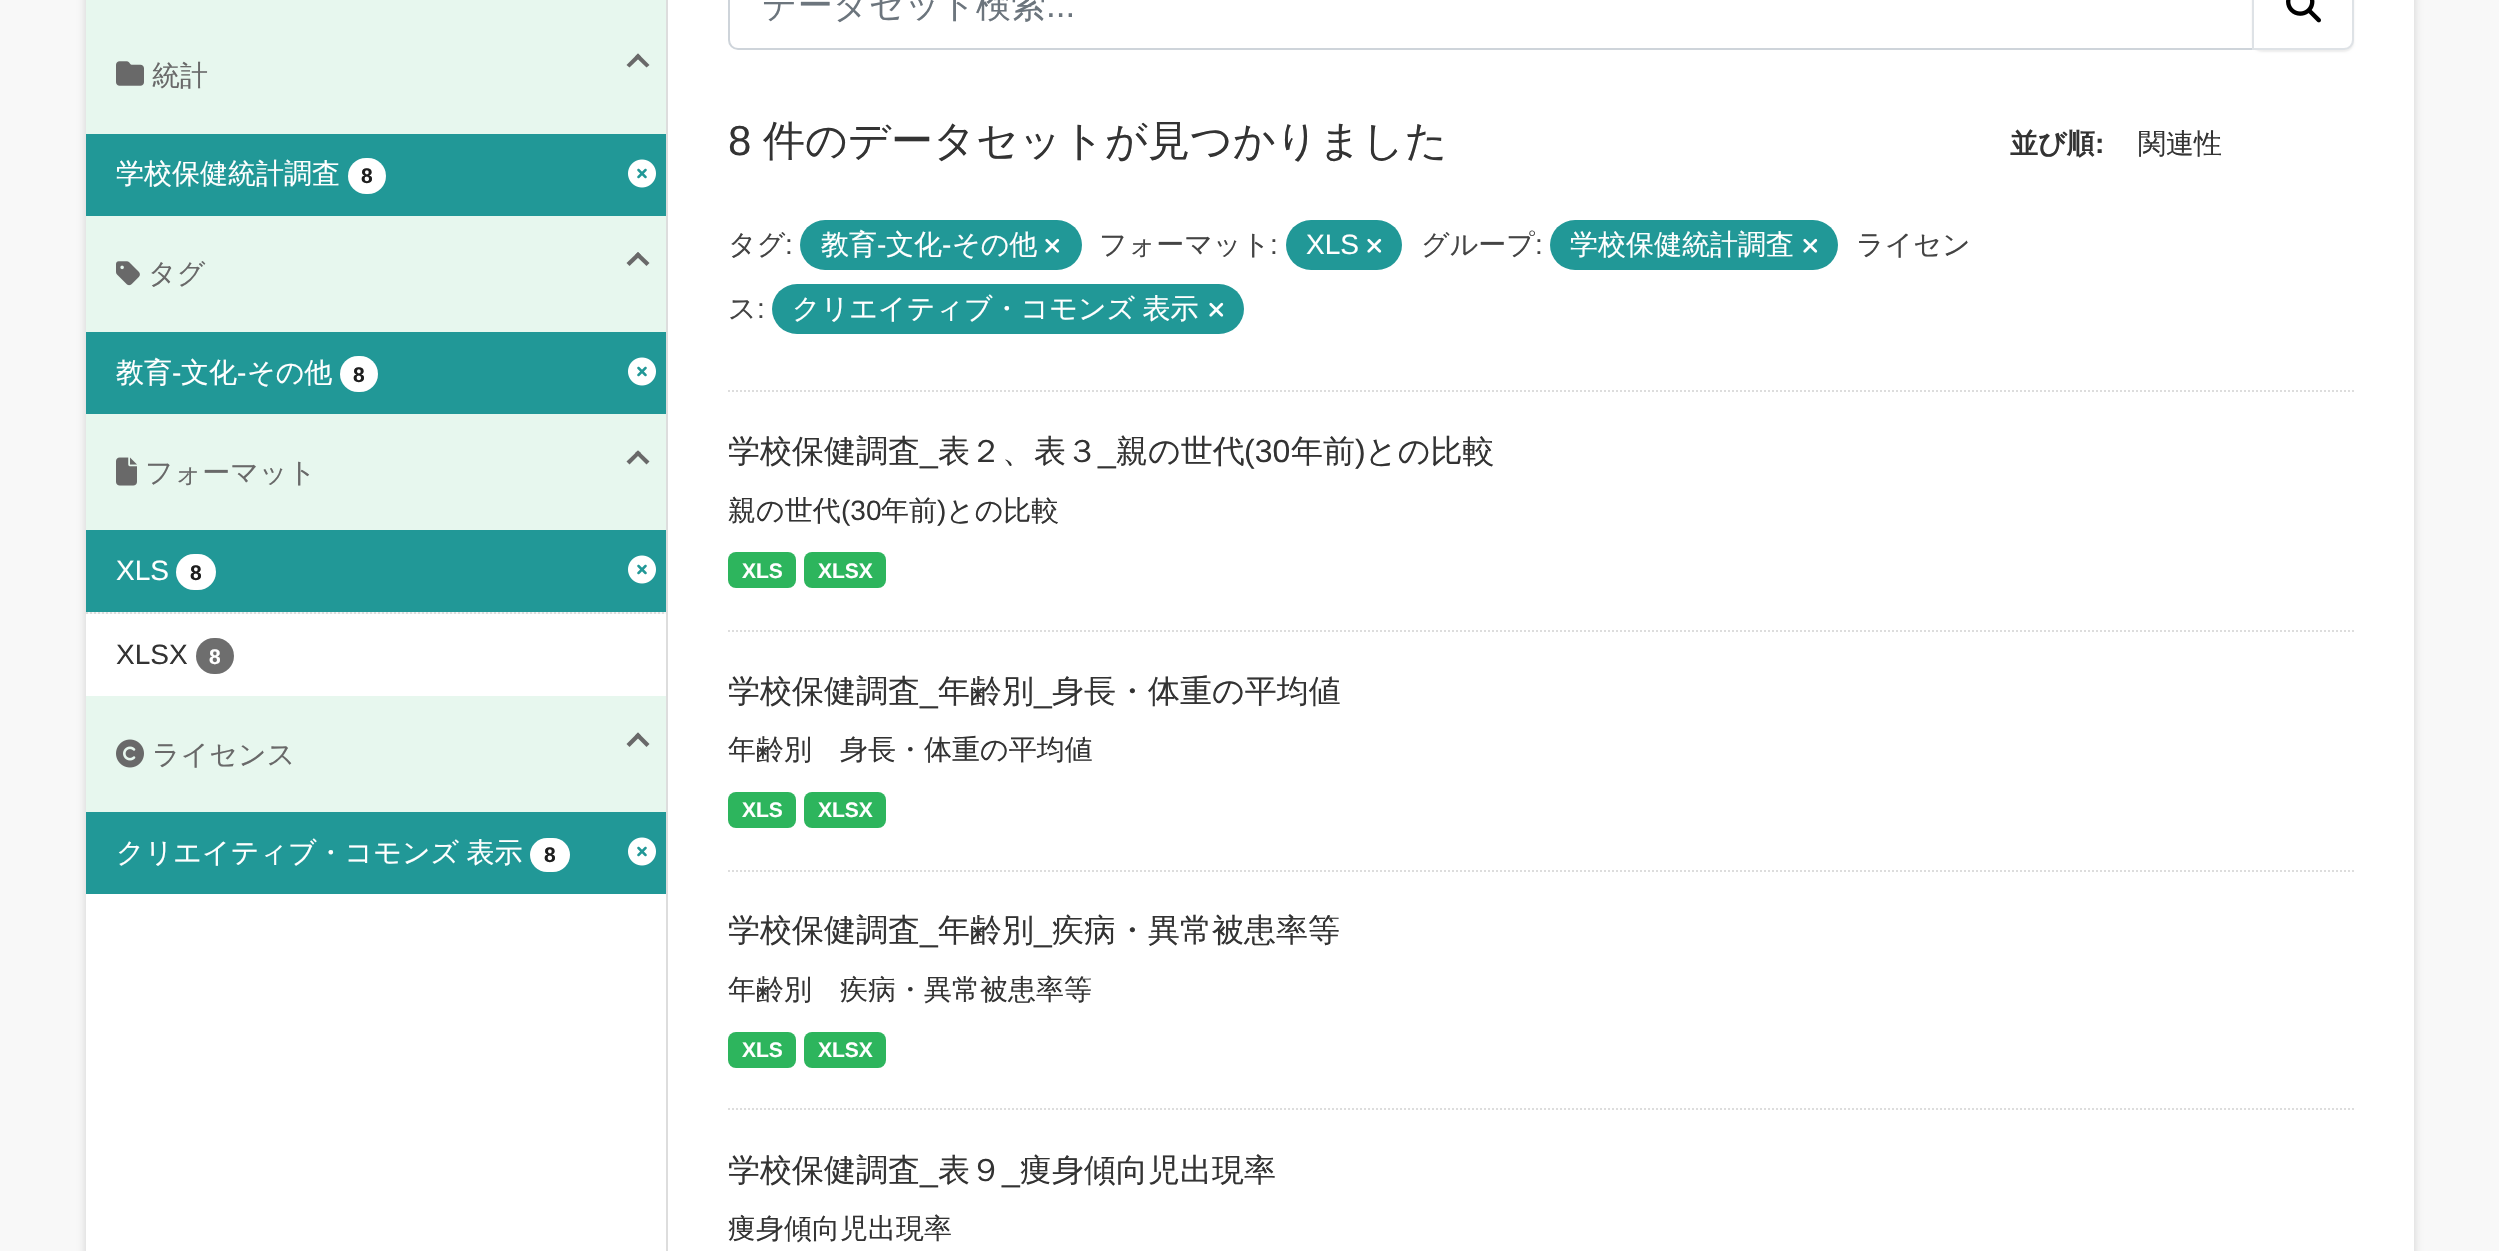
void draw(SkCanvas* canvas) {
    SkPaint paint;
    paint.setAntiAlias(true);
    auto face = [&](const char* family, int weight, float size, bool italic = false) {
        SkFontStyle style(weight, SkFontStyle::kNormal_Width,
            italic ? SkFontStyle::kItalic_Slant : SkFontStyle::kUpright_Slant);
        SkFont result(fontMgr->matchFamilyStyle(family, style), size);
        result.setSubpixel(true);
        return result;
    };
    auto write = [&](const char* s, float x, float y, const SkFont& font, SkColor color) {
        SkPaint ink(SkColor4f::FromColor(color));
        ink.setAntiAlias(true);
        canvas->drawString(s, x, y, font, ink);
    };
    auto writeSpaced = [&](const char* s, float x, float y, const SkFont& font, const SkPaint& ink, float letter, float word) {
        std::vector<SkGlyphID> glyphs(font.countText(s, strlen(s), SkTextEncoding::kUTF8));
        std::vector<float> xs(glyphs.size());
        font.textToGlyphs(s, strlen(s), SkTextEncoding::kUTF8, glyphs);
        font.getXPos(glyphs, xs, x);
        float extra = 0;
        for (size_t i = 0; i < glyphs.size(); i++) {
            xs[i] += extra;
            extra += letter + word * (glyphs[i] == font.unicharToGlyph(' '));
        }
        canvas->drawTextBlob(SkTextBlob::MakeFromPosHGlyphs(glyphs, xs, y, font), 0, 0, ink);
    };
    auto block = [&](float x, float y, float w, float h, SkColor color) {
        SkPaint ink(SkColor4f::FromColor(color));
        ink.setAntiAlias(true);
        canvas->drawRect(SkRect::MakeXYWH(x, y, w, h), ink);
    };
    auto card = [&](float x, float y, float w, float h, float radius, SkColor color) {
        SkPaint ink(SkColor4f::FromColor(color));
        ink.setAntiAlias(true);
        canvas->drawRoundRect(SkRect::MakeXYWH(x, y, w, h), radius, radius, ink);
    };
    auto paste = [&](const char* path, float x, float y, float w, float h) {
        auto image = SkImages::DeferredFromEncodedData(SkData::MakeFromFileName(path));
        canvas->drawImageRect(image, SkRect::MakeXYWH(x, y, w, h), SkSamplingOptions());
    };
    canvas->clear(SkColorSetRGB(248, 248, 248));
    paint.setColor(SkColorSetARGB(41, 0, 0, 0));
    paint.setMaskFilter(SkMaskFilter::MakeBlur(kNormal_SkBlurStyle, 4));
    canvas->drawRoundRect(SkRect::MakeXYWH(86, -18, 2328, 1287), 6, 6, paint);
    paint.setMaskFilter(nullptr);
    block(86, 0, 2328, 1251, SK_ColorWHITE);
    block(86, 0, 580, 134, SkColorSetRGB(231, 247, 238));
    paste("pic1.png", 116, 61, 28, 25);
    auto kFont1 = face("WenQuanYi Zen Hei", 500, 28);
    write("統計", 152, 85, kFont1, SkColorSetRGB(105, 105, 105));
    paint.setColor(SkColorSetRGB(105, 105, 105));
    canvas->drawPath(SkPathBuilder().moveTo(638, 53.5f).lineTo(649.5f, 65).lineTo(646.5f, 67.5f).lineTo(635, 56.5f).close().detach(), paint);
    canvas->drawPath(SkPathBuilder().moveTo(638, 53.5f).lineTo(641, 56.5f).lineTo(629.5f, 67.5f).lineTo(626.5f, 65).close().detach(), paint);
    block(86, 134, 580, 82, SkColorSetRGB(33, 152, 151));
    write("学校保健統計調査", 116, 183, kFont1, SK_ColorWHITE);
    card(348, 158, 38, 36, 18, SK_ColorWHITE);
    auto kFont2 = face("Liberation Sans", 700, 21);
    write("8", 361, 183, kFont2, SkColorSetRGB(30, 30, 30));
    paste("pic2.png", 628, 159, 28, 29);
    block(86, 216, 580, 116, SkColorSetRGB(231, 247, 238));
    canvas->drawPath(SkPathBuilder().moveTo(638, 252).lineTo(649.5f, 263).lineTo(646.5f, 266).lineTo(635, 255).close().detach(), paint);
    canvas->drawPath(SkPathBuilder().moveTo(638, 252).lineTo(641, 255).lineTo(629.5f, 266).lineTo(626.5f, 263).close().detach(), paint);
    paste("pic3.png", 116, 261, 24, 25);
    write("タグ", 148, 283, kFont1, SkColorSetRGB(105, 105, 105));
    block(86, 332, 580, 82, SkColorSetRGB(33, 152, 151));
    write("教育", 116, 382, kFont1, SK_ColorWHITE);
    auto kFont3 = face("Liberation Sans", 400, 28);
    write("-", 172, 382, kFont3, SK_ColorWHITE);
    write("文化", 181, 382, kFont1, SK_ColorWHITE);
    write("-", 237, 382, kFont3, SK_ColorWHITE);
    write("その他", 247, 382, kFont1, SK_ColorWHITE);
    card(340, 356, 38, 36, 18, SK_ColorWHITE);
    write("8", 353, 382, kFont2, SkColorSetRGB(30, 30, 30));
    paste("pic2.png", 628, 357, 28, 29);
    block(86, 414, 580, 116, SkColorSetRGB(231, 247, 238));
    paste("pic4.png", 116, 457, 21, 29);
    write("フォーマット", 145, 482, kFont1, SkColorSetRGB(105, 105, 105));
    canvas->drawPath(SkPathBuilder().moveTo(638, 450.5f).lineTo(649.5f, 461.5f).lineTo(646.5f, 464.5f).lineTo(635, 453).close().detach(), paint);
    canvas->drawPath(SkPathBuilder().moveTo(638, 450.5f).lineTo(641, 453).lineTo(629.5f, 464.5f).lineTo(626.5f, 461.5f).close().detach(), paint);
    block(88, 612, 578, 2, SkColorSetRGB(246, 246, 246));
    paint.setStyle(SkPaint::kStroke_Style);
    paint.setStrokeWidth(2);
    paint.setColor(SkColorSetRGB(221, 221, 221));
    paint.setPathEffect(SkDashPathEffect::Make({{2, 2}}, 0));
    canvas->drawPath(SkPathBuilder().moveTo(86, 613).lineTo(666, 613).detach(), paint);
    paint.setPathEffect(nullptr);
    block(86, 530, 580, 82, SkColorSetRGB(33, 152, 151));
    write("XLS", 116, 580, kFont3, SK_ColorWHITE);
    card(176, 554, 40, 36, 18, SK_ColorWHITE);
    write("8", 190, 580, kFont2, SkColorSetRGB(30, 30, 30));
    paste("pic2.png", 628, 555, 28, 29);
    write("XLSX", 116, 664, kFont3, SkColorSetRGB(51, 51, 51));
    card(196, 638, 38, 36, 18, SkColorSetRGB(110, 110, 110));
    write("8", 209, 664, kFont2, SK_ColorWHITE);
    block(86, 696, 580, 116, SkColorSetRGB(231, 247, 238));
    paste("pic5.png", 116, 739, 28, 29);
    write("ライセンス", 152, 764, kFont1, SkColorSetRGB(105, 105, 105));
    paint.setStyle(SkPaint::kFill_Style);
    paint.setColor(SkColorSetRGB(105, 105, 105));
    canvas->drawPath(SkPathBuilder().moveTo(638, 732.5f).lineTo(649.5f, 744).lineTo(646.5f, 747).lineTo(635, 735.5f).close().detach(), paint);
    canvas->drawPath(SkPathBuilder().moveTo(638, 732.5f).lineTo(641, 735.5f).lineTo(629.5f, 747).lineTo(626.5f, 744).close().detach(), paint);
    block(86, 812, 580, 82, SkColorSetRGB(33, 152, 151));
    paint.setColor(SK_ColorWHITE);
    writeSpaced("クリエイティブ・コモンズ 表示", 116, 862, kFont1, paint, 0, -1);
    card(530, 838, 40, 34, 17, SK_ColorWHITE);
    write("8", 544, 862, kFont2, SkColorSetRGB(30, 30, 30));
    paste("pic2.png", 628, 837, 28, 29);
    block(666, 0, 2, 1251, SkColorSetRGB(221, 221, 221));
    paint.setStyle(SkPaint::kStroke_Style);
    paint.setColor(SkColorSetRGB(221, 221, 221));
    paint.setPathEffect(SkDashPathEffect::Make({{2, 2}}, 0));
    canvas->drawPath(SkPathBuilder().moveTo(728, 391).lineTo(2354, 391).detach(), paint);
    paint.setPathEffect(nullptr);
    paint.setColor(SkColorSetRGB(206, 212, 218));
    canvas->drawPath(SkPathBuilder().moveTo(738, -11).lineTo(2253, -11).lineTo(2253, 49).lineTo(738, 49).cubicTo(733, 49, 729, 45, 729, 40).lineTo(729, -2).cubicTo(729, -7, 733, -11, 738, -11).close().detach(), paint);
    auto kFont4 = face("WenQuanYi Zen Hei", 500, 35);
    write("データセット検索", 762, 17, kFont4, SkColorSetRGB(108, 117, 125));
    auto kFont5 = face("Liberation Sans", 400, 35);
    write("...", 1046, 17, kFont5, SkColorSetRGB(108, 117, 125));
    paint.setStyle(SkPaint::kFill_Style);
    paint.setColor(SkColorSetARGB(18, 0, 0, 0));
    paint.setMaskFilter(SkMaskFilter::MakeBlur(kNormal_SkBlurStyle, 1));
    canvas->drawRoundRect(SkRect::MakeXYWH(2252, -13, 102, 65), 10, 10, paint);
    paint.setMaskFilter(nullptr);
    paint.setColor(SK_ColorWHITE);
    canvas->drawPath(SkPathBuilder().moveTo(2253, -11).lineTo(2344, -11).cubicTo(2349, -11, 2353, -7, 2353, -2).lineTo(2353, 40).cubicTo(2353, 45, 2349, 49, 2344, 49).lineTo(2253, 49).close().detach(), paint);
    paint.setStyle(SkPaint::kStroke_Style);
    paint.setColor(SkColorSetRGB(222, 226, 230));
    canvas->drawPath(SkPathBuilder().moveTo(2253, -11).lineTo(2344, -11).cubicTo(2349, -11, 2353, -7, 2353, -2).lineTo(2353, 40).cubicTo(2353, 45, 2349, 49, 2344, 49).lineTo(2253, 49).close().detach(), paint);
    paste("pic6.png", 2286, 0, 35, 23);
    auto kFont6 = face("Liberation Sans", 400, 42);
    write("8", 728, 155, kFont6, SkColorSetRGB(51, 51, 51));
    auto kFont7 = face("WenQuanYi Zen Hei", 500, 42);
    write("件のデータセットが見つかりました", 763, 155, kFont7, SkColorSetRGB(51, 51, 51));
    auto kFont8 = face("WenQuanYi Zen Hei", 700, 28);
    write("並び順", 2010, 153, kFont8, SkColorSetRGB(51, 51, 51));
    auto kFont9 = face("Liberation Sans", 700, 28);
    write(":", 2095, 153, kFont9, SkColorSetRGB(51, 51, 51));
    write("関連性", 2138, 153, kFont1, SkColorSetRGB(51, 51, 51));
    write("タグ", 728, 254, kFont1, SkColorSetRGB(68, 68, 68));
    write(":", 785, 254, kFont3, SkColorSetRGB(68, 68, 68));
    card(800, 220, 282, 50, 25, SkColorSetRGB(33, 152, 151));
    write("教育", 821, 254, kFont1, SK_ColorWHITE);
    write("-", 877, 254, kFont3, SK_ColorWHITE);
    write("文化", 886, 254, kFont1, SK_ColorWHITE);
    write("-", 942, 254, kFont3, SK_ColorWHITE);
    write("その他", 952, 254, kFont1, SK_ColorWHITE);
    paste("pic7.png", 1045, 238, 15, 15);
    write("フォーマット", 1099, 254, kFont1, SkColorSetRGB(68, 68, 68));
    write(":", 1270, 254, kFont3, SkColorSetRGB(68, 68, 68));
    card(1286, 220, 116, 50, 25, SkColorSetRGB(33, 152, 151));
    write("XLS", 1306, 254, kFont3, SK_ColorWHITE);
    paste("pic7.png", 1367, 238, 15, 15);
    write("グループ", 1421, 254, kFont1, SkColorSetRGB(68, 68, 68));
    write(":", 1535, 254, kFont3, SkColorSetRGB(68, 68, 68));
    card(1550, 220, 288, 50, 25, SkColorSetRGB(33, 152, 151));
    write("学校保健統計調査", 1570, 254, kFont1, SK_ColorWHITE);
    paste("pic7.png", 1803, 238, 15, 15);
    write("ライセン", 1856, 254, kFont1, SkColorSetRGB(68, 68, 68));
    write("ス", 728, 318, kFont1, SkColorSetRGB(68, 68, 68));
    write(":", 757, 318, kFont3, SkColorSetRGB(68, 68, 68));
    card(772, 284, 472, 50, 25, SkColorSetRGB(33, 152, 151));
    paint.setStyle(SkPaint::kFill_Style);
    paint.setColor(SK_ColorWHITE);
    writeSpaced("クリエイティブ・コモンズ 表示", 792, 318, kFont1, paint, 0, -1);
    paste("pic7.png", 1209, 302, 15, 15);
    paint.setStyle(SkPaint::kStroke_Style);
    paint.setColor(SkColorSetRGB(221, 221, 221));
    paint.setPathEffect(SkDashPathEffect::Make({{2, 2}}, 0));
    canvas->drawPath(SkPathBuilder().moveTo(728, 631).lineTo(2354, 631).detach(), paint);
    paint.setPathEffect(nullptr);
    auto kFont10 = face("WenQuanYi Zen Hei", 500, 32);
    write("学校保健調査", 728, 462, kFont10, SkColorSetRGB(51, 51, 51));
    auto kFont11 = face("Liberation Sans", 400, 32);
    write("_", 920, 462, kFont11, SkColorSetRGB(51, 51, 51));
    write("表２、表３", 938, 462, kFont10, SkColorSetRGB(51, 51, 51));
    write("_", 1098, 462, kFont11, SkColorSetRGB(51, 51, 51));
    write("親の世代", 1116, 462, kFont10, SkColorSetRGB(51, 51, 51));
    write("(30", 1244, 462, kFont11, SkColorSetRGB(51, 51, 51));
    write("年前", 1291, 462, kFont10, SkColorSetRGB(51, 51, 51));
    write(")", 1355, 462, kFont11, SkColorSetRGB(51, 51, 51));
    write("との比較", 1365, 462, kFont10, SkColorSetRGB(51, 51, 51));
    write("親の世代", 728, 520, kFont1, SkColorSetRGB(51, 51, 51));
    write("(30", 841, 520, kFont3, SkColorSetRGB(51, 51, 51));
    write("年前", 881, 520, kFont1, SkColorSetRGB(51, 51, 51));
    write(")", 937, 520, kFont3, SkColorSetRGB(51, 51, 51));
    write("との比較", 946, 520, kFont1, SkColorSetRGB(51, 51, 51));
    card(728, 552, 68, 36, 8, SkColorSetRGB(45, 181, 93));
    write("XLS", 742, 578, kFont2, SK_ColorWHITE);
    card(804, 552, 82, 36, 8, SkColorSetRGB(45, 181, 93));
    write("XLSX", 818, 578, kFont2, SK_ColorWHITE);
    paint.setPathEffect(SkDashPathEffect::Make({{2, 2}}, 0));
    canvas->drawPath(SkPathBuilder().moveTo(728, 871).lineTo(2354, 871).detach(), paint);
    paint.setPathEffect(nullptr);
    write("学校保健調査", 728, 702, kFont10, SkColorSetRGB(51, 51, 51));
    write("年齢別", 938, 702, kFont10, SkColorSetRGB(51, 51, 51));
    write("身長・体重の平均値", 1052, 702, kFont10, SkColorSetRGB(51, 51, 51));
    write("_", 920, 702, kFont11, SkColorSetRGB(51, 51, 51));
    write("_", 1034, 702, kFont11, SkColorSetRGB(51, 51, 51));
    write("年齢別　身長・体重の平均値", 728, 759, kFont1, SkColorSetRGB(51, 51, 51));
    card(728, 792, 68, 36, 8, SkColorSetRGB(45, 181, 93));
    write("XLS", 742, 817, kFont2, SK_ColorWHITE);
    card(804, 792, 82, 36, 8, SkColorSetRGB(45, 181, 93));
    write("XLSX", 818, 817, kFont2, SK_ColorWHITE);
    paint.setPathEffect(SkDashPathEffect::Make({{2, 2}}, 0));
    canvas->drawPath(SkPathBuilder().moveTo(728, 1109).lineTo(2354, 1109).detach(), paint);
    paint.setPathEffect(nullptr);
    write("学校保健調査", 728, 941, kFont10, SkColorSetRGB(51, 51, 51));
    write("年齢別", 938, 941, kFont10, SkColorSetRGB(51, 51, 51));
    write("疾病・異常被患率等", 1052, 941, kFont10, SkColorSetRGB(51, 51, 51));
    write("_", 920, 941, kFont11, SkColorSetRGB(51, 51, 51));
    write("_", 1034, 941, kFont11, SkColorSetRGB(51, 51, 51));
    write("年齢別　疾病・異常被患率等", 728, 999, kFont1, SkColorSetRGB(51, 51, 51));
    card(728, 1032, 68, 36, 8, SkColorSetRGB(45, 181, 93));
    write("XLS", 742, 1057, kFont2, SK_ColorWHITE);
    card(804, 1032, 82, 36, 8, SkColorSetRGB(45, 181, 93));
    write("XLSX", 818, 1057, kFont2, SK_ColorWHITE);
    write("学校保健調査", 728, 1181, kFont10, SkColorSetRGB(51, 51, 51));
    write("表９", 938, 1181, kFont10, SkColorSetRGB(51, 51, 51));
    write("痩身傾向児出現率", 1020, 1181, kFont10, SkColorSetRGB(51, 51, 51));
    write("_", 920, 1181, kFont11, SkColorSetRGB(51, 51, 51));
    write("_", 1002, 1181, kFont11, SkColorSetRGB(51, 51, 51));
    write("痩身傾向児出現率", 728, 1238, kFont1, SkColorSetRGB(51, 51, 51));
}
